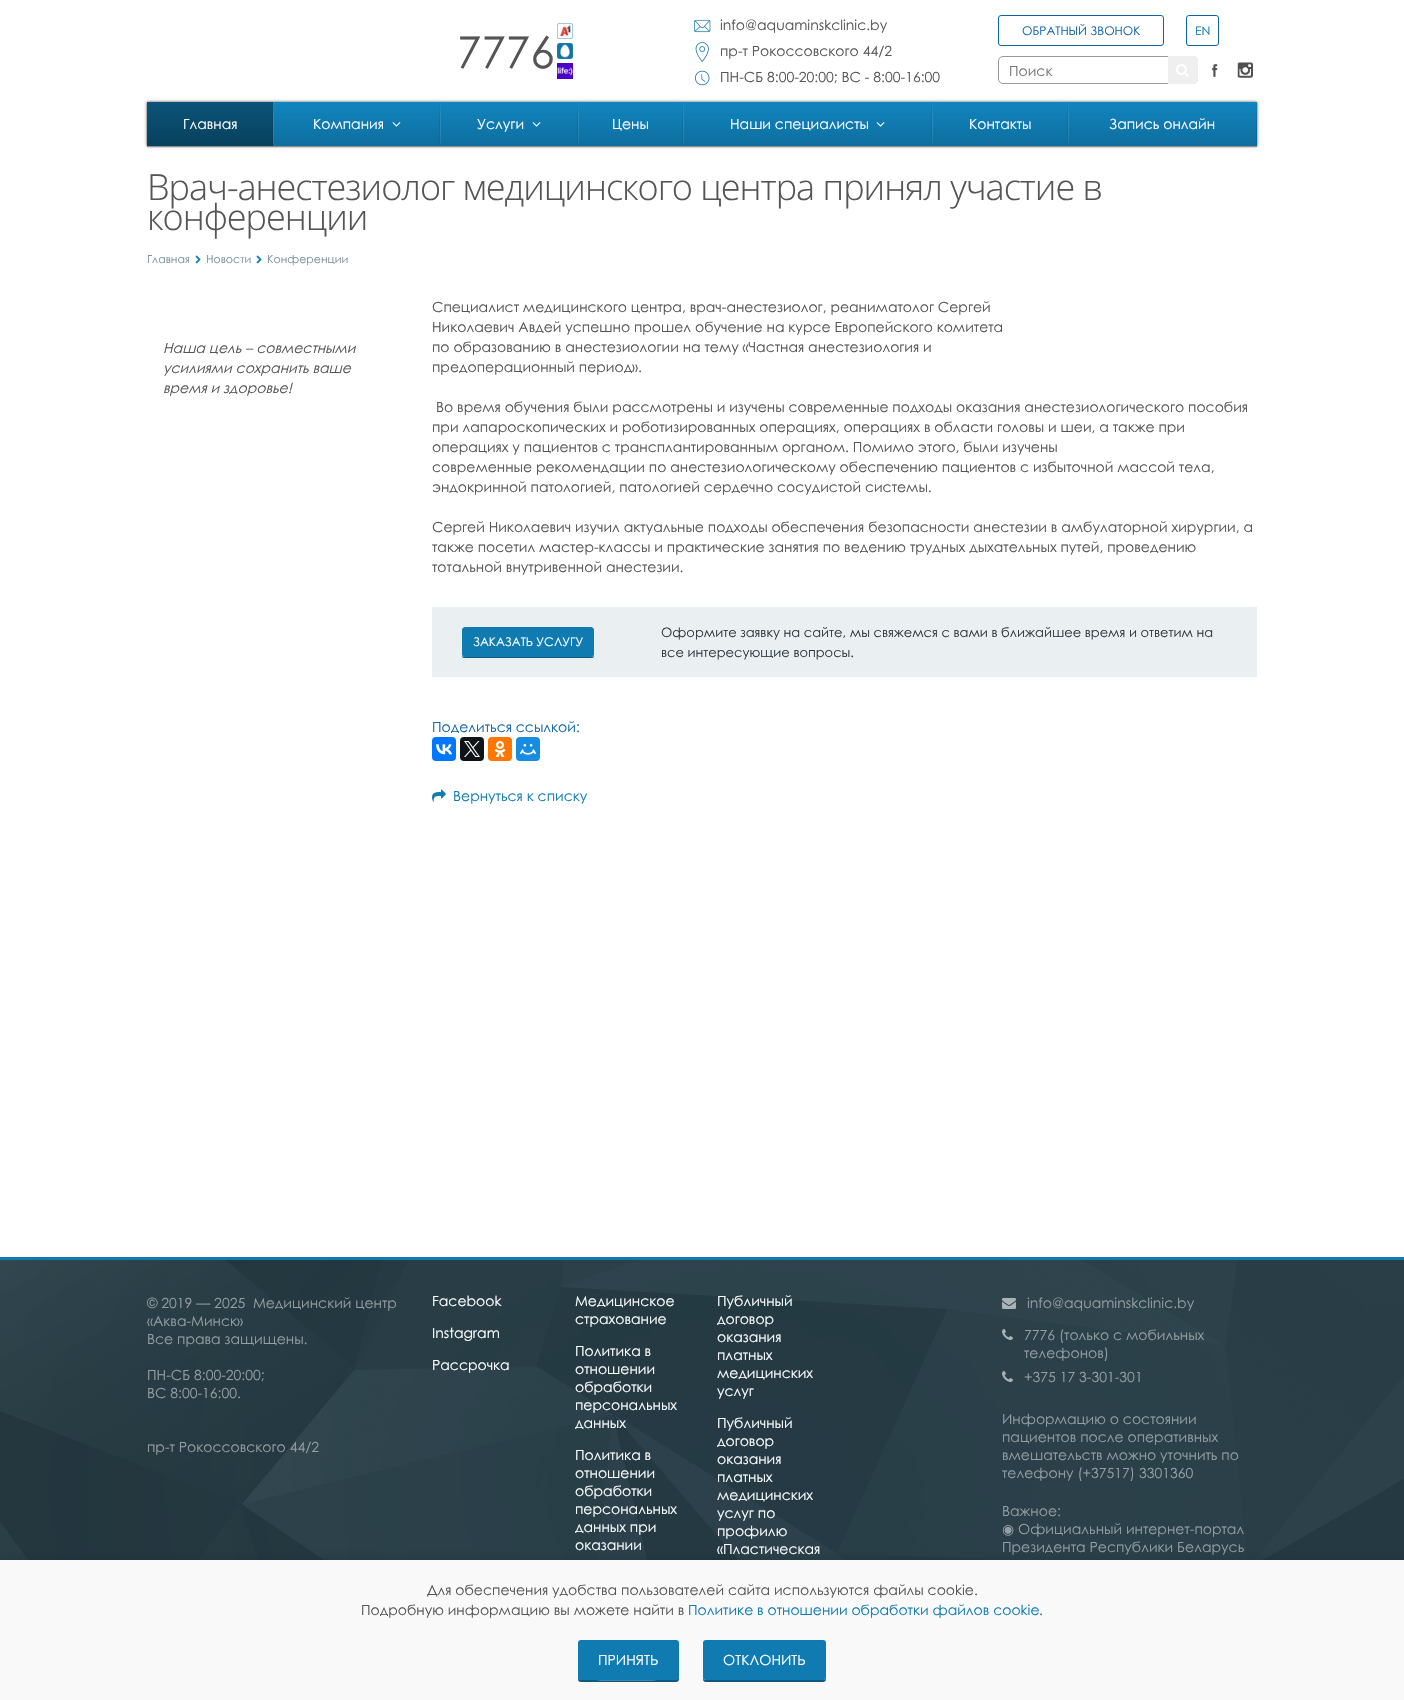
void draw(SkCanvas* canvas) {
    SkPaint paint;
    paint.setAntiAlias(true);
    auto face = [&](const char* family, int weight, float size, bool italic = false) {
        SkFontStyle style(weight, SkFontStyle::kNormal_Width,
            italic ? SkFontStyle::kItalic_Slant : SkFontStyle::kUpright_Slant);
        SkFont result(fontMgr->matchFamilyStyle(family, style), size);
        result.setSubpixel(true);
        return result;
    };
    auto write = [&](const char* s, float x, float y, const SkFont& font, SkColor color) {
        SkPaint ink(SkColor4f::FromColor(color));
        ink.setAntiAlias(true);
        canvas->drawString(s, x, y, font, ink);
    };
    auto writeSpaced = [&](const char* s, float x, float y, const SkFont& font, const SkPaint& ink, float letter, float word) {
        std::vector<SkGlyphID> glyphs(font.countText(s, strlen(s), SkTextEncoding::kUTF8));
        std::vector<float> xs(glyphs.size());
        font.textToGlyphs(s, strlen(s), SkTextEncoding::kUTF8, glyphs);
        font.getXPos(glyphs, xs, x);
        float extra = 0;
        for (size_t i = 0; i < glyphs.size(); i++) {
            xs[i] += extra;
            extra += letter + word * (glyphs[i] == font.unicharToGlyph(' '));
        }
        canvas->drawTextBlob(SkTextBlob::MakeFromPosHGlyphs(glyphs, xs, y, font), 0, 0, ink);
    };
    auto block = [&](float x, float y, float w, float h, SkColor color) {
        SkPaint ink(SkColor4f::FromColor(color));
        ink.setAntiAlias(true);
        canvas->drawRect(SkRect::MakeXYWH(x, y, w, h), ink);
    };
    auto card = [&](float x, float y, float w, float h, float radius, SkColor color) {
        SkPaint ink(SkColor4f::FromColor(color));
        ink.setAntiAlias(true);
        canvas->drawRoundRect(SkRect::MakeXYWH(x, y, w, h), radius, radius, ink);
    };
    auto paste = [&](const char* path, float x, float y, float w, float h) {
        auto image = SkImages::DeferredFromEncodedData(SkData::MakeFromFileName(path));
        canvas->drawImageRect(image, SkRect::MakeXYWH(x, y, w, h), SkSamplingOptions());
    };
    canvas->clear(SK_ColorWHITE);
    auto kFont1 = face("Century Gothic", 400, 44);
    write("7776", 457, 68, kFont1, SkColorSetRGB(85, 85, 85));
    paste("pic1.png", 557, 23, 16, 16);
    paste("pic2.png", 557, 43, 16, 16);
    paste("pic3.png", 557, 63, 16, 16);
    paste("pic4.png", 694, 19, 17, 14);
    auto kFont2 = face("Century Gothic", 400, 14);
    write("info@aquaminskclinic.by", 720, 30, kFont2, SkColorSetRGB(85, 85, 85));
    paste("pic5.png", 695, 42, 14, 20);
    write("пр-т Рокоссовского 44/2", 720, 56, kFont2, SkColorSetRGB(85, 85, 85));
    paste("pic6.png", 695, 70, 15, 16);
    write("ПН-CБ 8:00-20:00; ВС - 8:00-16:00", 720, 82, kFont2, SkColorSetRGB(85, 85, 85));
    paint.setStyle(SkPaint::kStroke_Style);
    paint.setStrokeWidth(1);
    paint.setColor(SkColorSetRGB(13, 99, 170));
    canvas->drawRoundRect(SkRect::MakeXYWH(998.5f, 15.5f, 165, 30), 2.5f, 2.5f, paint);
    auto kFont3 = face("Century Gothic", 400, 12);
    write("ОБРАТНЫЙ ЗВОНОК", 1022, 35, kFont3, SkColorSetRGB(16, 101, 171));
    canvas->drawRoundRect(SkRect::MakeXYWH(1186.5f, 15.5f, 32, 30), 2.5f, 2.5f, paint);
    write("EN", 1195, 35, kFont3, SkColorSetRGB(16, 123, 177));
    paint.setColor(SkColorSetRGB(153, 153, 153));
    canvas->drawRoundRect(SkRect::MakeXYWH(998.5f, 56.5f, 199, 27), 4.5f, 4.5f, paint);
    write("Поиск", 1009, 76, kFont2, SkColorSetRGB(117, 117, 117));
    paint.setStyle(SkPaint::kFill_Style);
    paint.setColor(SkColorSetRGB(239, 239, 239));
    canvas->drawPath(SkPathBuilder().moveTo(1168, 56).lineTo(1193, 56).cubicTo(1196, 56, 1198, 58, 1198, 61).lineTo(1198, 79).cubicTo(1198, 82, 1196, 84, 1193, 84).lineTo(1168, 84).close().detach(), paint);
    paste("pic7.png", 1176, 64, 13, 13);
    paste("pic8.png", 1212, 64, 6, 13);
    paste("pic9.png", 1237, 62, 16, 16);
    paint.setColor(SkColorSetARGB(77, 0, 0, 0));
    paint.setMaskFilter(SkMaskFilter::MakeBlur(kNormal_SkBlurStyle, 0.5f));
    canvas->drawRect(SkRect::MakeXYWH(147, 103, 1110, 44), paint);
    paint.setMaskFilter(nullptr);
    paint.setColor(SkColorSetRGB(85, 85, 85));
    paint.setMaskFilter(SkMaskFilter::MakeBlur(kNormal_SkBlurStyle, 1.5f));
    canvas->drawRect(SkRect::MakeXYWH(147, 102, 1110, 44), paint);
    paint.setMaskFilter(nullptr);
    {
        const SkColor colors[] = {SkColorSetRGB(17, 133, 191), SkColorSetRGB(14, 110, 158)};
        const float stops[] = {0, 1};
        const SkPoint ends[] = {{702, 102}, {702, 146}};
        paint.setShader(SkGradientShader::MakeLinear(ends, colors, stops, 2, SkTileMode::kClamp));
        paint.setAlpha(255);
    }
    canvas->drawRect(SkRect::MakeXYWH(273, 102, 984, 44), paint);
    {
        const SkColor colors[] = {SkColorSetRGB(11, 84, 121), SkColorSetRGB(8, 64, 93)};
        const float stops[] = {0, 1};
        const SkPoint ends[] = {{210, 102}, {210, 146}};
        paint.setShader(SkGradientShader::MakeLinear(ends, colors, stops, 2, SkTileMode::kClamp));
        paint.setAlpha(255);
    }
    canvas->drawRect(SkRect::MakeXYWH(147, 102, 126, 44), paint);
    write("Главная", 183, 129, kFont2, SK_ColorWHITE);
    paste("pic10.png", 272, 102, 2, 42);
    write("Компания", 313, 129, kFont2, SK_ColorWHITE);
    paste("pic11.png", 392, 122, 9, 5);
    paste("pic12.png", 439, 102, 2, 42);
    write("Услуги", 477, 129, kFont2, SK_ColorWHITE);
    paste("pic11.png", 532, 122, 9, 5);
    paste("pic12.png", 577, 102, 2, 42);
    write("Цены", 612, 129, kFont2, SK_ColorWHITE);
    paste("pic12.png", 682, 102, 2, 42);
    write("Наши специалисты", 730, 129, kFont2, SK_ColorWHITE);
    paste("pic11.png", 876, 122, 9, 5);
    paste("pic12.png", 931, 102, 2, 42);
    write("Контакты", 969, 129, kFont2, SK_ColorWHITE);
    paste("pic12.png", 1067, 102, 2, 42);
    write("Запись онлайн", 1109, 129, kFont2, SK_ColorWHITE);
    paste("pic13.png", 1256, 102, 2, 42);
    auto kFont4 = face("Open Sans", 300, 36);
    paint.setShader(nullptr);
    paint.setColor(SkColorSetRGB(85, 85, 85));
    writeSpaced("Врач-анестезиолог медицинского центра принял участие в", 147, 200, kFont4, paint, -1, 0);
    writeSpaced("конференции", 147, 230, kFont4, paint, -1, 0);
    auto kFont5 = face("Century Gothic", 400, 11);
    write("Главная", 147, 263, kFont5, SkColorSetRGB(124, 142, 154));
    paste("pic14.png", 195, 255, 6, 9);
    write("Новости", 206, 263, kFont5, SkColorSetRGB(124, 142, 154));
    paste("pic14.png", 256, 255, 6, 9);
    write("Конференции", 267, 263, kFont5, SkColorSetRGB(124, 142, 154));
    auto kFont6 = face("Century Gothic", 400, 14, true);
    write("Наша цель – совместными", 163, 353, kFont6, SkColorSetRGB(85, 85, 85));
    write("усилиями сохранить ваше", 163, 373, kFont6, SkColorSetRGB(85, 85, 85));
    write("время и здоровье!", 163, 393, kFont6, SkColorSetRGB(85, 85, 85));
    write("Специалист медицинского центра, врач-анестезиолог, реаниматолог Сергей", 432, 312, kFont2, SkColorSetRGB(85, 85, 85));
    write("Николаевич Авдей успешно прошел обучение на курсе Европейского комитета", 432, 332, kFont2, SkColorSetRGB(85, 85, 85));
    write("по образованию в анестезиологии на тему «Частная анестезиология и", 432, 352, kFont2, SkColorSetRGB(85, 85, 85));
    write("предоперационный период».", 432, 372, kFont2, SkColorSetRGB(85, 85, 85));
    write("Во время обучения были рассмотрены и изучены современные подходы оказания анестезиологического пособия", 436, 412, kFont2, SkColorSetRGB(85, 85, 85));
    write("при лапароскопических и роботизированных операциях, операциях в области головы и шеи, а также при", 432, 432, kFont2, SkColorSetRGB(85, 85, 85));
    write("операциях у пациентов с трансплантированным органом. Помимо этого, были изучены", 432, 452, kFont2, SkColorSetRGB(85, 85, 85));
    write("современные рекомендации по анестезиологическому обеспечению пациентов с избыточной массой тела,", 432, 472, kFont2, SkColorSetRGB(85, 85, 85));
    write("эндокринной патологией, патологией сердечно сосудистой системы.", 432, 492, kFont2, SkColorSetRGB(85, 85, 85));
    write("Сергей Николаевич изучил актуальные подходы обеспечения безопасности анестезии в амбулаторной хирургии, а", 432, 532, kFont2, SkColorSetRGB(85, 85, 85));
    write("также посетил мастер-классы и практические занятия по ведению трудных дыхательных путей, проведению", 432, 552, kFont2, SkColorSetRGB(85, 85, 85));
    write("тотальной внутривенной анестезии.", 432, 572, kFont2, SkColorSetRGB(85, 85, 85));
    block(432, 607, 825, 70, SkColorSetRGB(234, 240, 242));
    paint.setColor(SkColorSetRGB(12, 90, 130));
    canvas->drawPath(SkPathBuilder().moveTo(462, 654).cubicTo(462, 656, 462, 658, 464, 658).lineTo(592, 658).cubicTo(594, 658, 594, 656, 594, 654).cubicTo(594, 656, 593, 657, 591, 657).lineTo(465, 657).cubicTo(463, 657, 462, 656, 462, 654).close().detach(), paint);
    paint.setColor(SkColorSetRGB(16, 123, 177));
    canvas->drawRoundRect(SkRect::MakeXYWH(462.5f, 627.5f, 131, 29), 2.5f, 2.5f, paint);
    paint.setStyle(SkPaint::kStroke_Style);
    canvas->drawRoundRect(SkRect::MakeXYWH(462.5f, 627.5f, 131, 29), 2.5f, 2.5f, paint);
    write("ЗАКАЗАТЬ УСЛУГУ", 473, 646, kFont3, SK_ColorWHITE);
    auto kFont7 = face("Century Gothic", 400, 13);
    write("Оформите заявку на сайте, мы свяжемся с вами в ближайшее время и ответим на", 661, 637, kFont7, SkColorSetRGB(47, 56, 61));
    write("все интересующие вопросы.", 661, 657, kFont7, SkColorSetRGB(47, 56, 61));
    write("Поделиться ссылкой:", 432, 732, kFont2, SkColorSetRGB(16, 101, 171));
    card(432, 737, 24, 24, 4, SkColorSetRGB(0, 119, 255));
    paste("pic15.png", 436, 744, 16, 11);
    card(460, 737, 24, 24, 4, SkColorSetRGB(15, 20, 25));
    paste("pic16.png", 464, 741, 16, 16);
    card(488, 737, 24, 24, 4, SkColorSetRGB(255, 119, 0));
    paste("pic17.png", 494, 741, 12, 16);
    card(516, 737, 24, 24, 4, SkColorSetRGB(22, 141, 226));
    paste("pic18.png", 520, 744, 16, 11);
    paste("pic19.png", 432, 789, 14, 13);
    write("Вернуться к списку", 453, 801, kFont2, SkColorSetRGB(16, 123, 177));
    block(0, 1260, 1404, 300, SkColorSetRGB(37, 60, 70));
    paste("pic20.png", 0, 1260, 1404, 300);
    block(0, 1257, 1404, 3, SkColorSetRGB(16, 123, 177));
    write("© 2019 — 2025  Медицинский центр", 147, 1308, kFont2, SkColorSetRGB(149, 159, 164));
    write("«Аква-Минск»", 147, 1326, kFont2, SkColorSetRGB(149, 159, 164));
    write("Все права защищены.", 147, 1344, kFont2, SkColorSetRGB(149, 159, 164));
    write("ПН-СБ 8:00-20:00;", 147, 1380, kFont2, SkColorSetRGB(149, 159, 164));
    write("ВС 8:00-16:00.", 147, 1398, kFont2, SkColorSetRGB(149, 159, 164));
    write("пр-т Рокоссовского 44/2", 147, 1452, kFont2, SkColorSetRGB(149, 159, 164));
    write("Facebook", 432, 1306, kFont2, SK_ColorWHITE);
    write("Instagram", 432, 1338, kFont2, SK_ColorWHITE);
    write("Рассрочка", 432, 1370, kFont2, SK_ColorWHITE);
    write("Медицинское", 575, 1306, kFont2, SK_ColorWHITE);
    write("страхование", 575, 1324, kFont2, SK_ColorWHITE);
    write("Политика в", 575, 1356, kFont2, SK_ColorWHITE);
    write("отношении", 575, 1374, kFont2, SK_ColorWHITE);
    write("обработки", 575, 1392, kFont2, SK_ColorWHITE);
    write("персональных", 575, 1410, kFont2, SK_ColorWHITE);
    write("данных", 575, 1428, kFont2, SK_ColorWHITE);
    write("Политика в", 575, 1460, kFont2, SK_ColorWHITE);
    write("отношении", 575, 1478, kFont2, SK_ColorWHITE);
    write("обработки", 575, 1496, kFont2, SK_ColorWHITE);
    write("персональных", 575, 1514, kFont2, SK_ColorWHITE);
    write("данных при", 575, 1532, kFont2, SK_ColorWHITE);
    write("оказании", 575, 1550, kFont2, SK_ColorWHITE);
    write("Публичный", 717, 1306, kFont2, SK_ColorWHITE);
    write("договор", 717, 1324, kFont2, SK_ColorWHITE);
    write("оказания", 717, 1342, kFont2, SK_ColorWHITE);
    write("платных", 717, 1360, kFont2, SK_ColorWHITE);
    write("медицинских", 717, 1378, kFont2, SK_ColorWHITE);
    write("услуг", 717, 1396, kFont2, SK_ColorWHITE);
    write("Публичный", 717, 1428, kFont2, SK_ColorWHITE);
    write("договор", 717, 1446, kFont2, SK_ColorWHITE);
    write("оказания", 717, 1464, kFont2, SK_ColorWHITE);
    write("платных", 717, 1482, kFont2, SK_ColorWHITE);
    write("медицинских", 717, 1500, kFont2, SK_ColorWHITE);
    write("услуг по", 717, 1518, kFont2, SK_ColorWHITE);
    write("профилю", 717, 1536, kFont2, SK_ColorWHITE);
    write("«Пластическая", 717, 1554, kFont2, SK_ColorWHITE);
    paste("pic21.png", 1002, 1298, 14, 11);
    write("info@aquaminskclinic.by", 1027, 1308, kFont2, SkColorSetRGB(149, 159, 164));
    paste("pic22.png", 1002, 1329, 11, 11);
    write("7776 (только с мобильных", 1024, 1340, kFont2, SkColorSetRGB(149, 159, 164));
    write("телефонов)", 1024, 1358, kFont2, SkColorSetRGB(149, 159, 164));
    paste("pic23.png", 1002, 1371, 11, 11);
    write("+375 17 3-301-301", 1024, 1382, kFont2, SkColorSetRGB(149, 159, 164));
    write("Информацию о состоянии", 1002, 1424, kFont2, SkColorSetRGB(149, 159, 164));
    write("пациентов после оперативных", 1002, 1442, kFont2, SkColorSetRGB(149, 159, 164));
    write("вмешательств можно уточнить по", 1002, 1460, kFont2, SkColorSetRGB(149, 159, 164));
    write("телефону (+37517) 3301360", 1002, 1478, kFont2, SkColorSetRGB(149, 159, 164));
    write("Важное:", 1002, 1516, kFont2, SkColorSetRGB(149, 159, 164));
    auto kFont8 = face("DejaVu Sans", 400, 14);
    write("◉", 1002, 1534, kFont8, SkColorSetRGB(149, 159, 164));
    write("Официальный интернет-портал", 1018, 1534, kFont2, SkColorSetRGB(149, 159, 164));
    write("Президента Республики Беларусь", 1002, 1552, kFont2, SkColorSetRGB(149, 159, 164));
    paint.setStyle(SkPaint::kFill_Style);
    paint.setColor(SkColorSetARGB(26, 0, 0, 0));
    paint.setMaskFilter(SkMaskFilter::MakeBlur(kNormal_SkBlurStyle, 5));
    canvas->drawRect(SkRect::MakeXYWH(0, 1558, 1404, 140), paint);
    paint.setMaskFilter(nullptr);
    block(0, 1560, 1404, 140, SkColorSetRGB(249, 249, 249));
    write("Для обеспечения удобства пользователей сайта используются файлы cookie.", 427, 1595, kFont2, SkColorSetRGB(85, 85, 85));
    write("Подробную информацию вы можете найти в", 361, 1615, kFont2, SkColorSetRGB(85, 85, 85));
    write("Политике в отношении обработки файлов cookie", 688, 1615, kFont2, SkColorSetRGB(16, 123, 177));
    write(".", 1039, 1615, kFont2, SkColorSetRGB(85, 85, 85));
    paint.setColor(SkColorSetRGB(12, 90, 130));
    canvas->drawPath(SkPathBuilder().moveTo(578, 1677).lineTo(578, 1679).cubicTo(578, 1681, 579, 1682, 581, 1682).lineTo(676, 1682).cubicTo(678, 1682, 679, 1681, 679, 1679).lineTo(679, 1677).lineTo(678, 1679).cubicTo(676, 1681, 591, 1680, 581, 1680).lineTo(579, 1679).close().detach(), paint);
    card(578, 1640, 101, 40, 3, SkColorSetRGB(16, 123, 177));
    write("ПРИНЯТЬ", 598, 1665, kFont2, SK_ColorWHITE);
    canvas->drawPath(SkPathBuilder().moveTo(703, 1677).lineTo(703, 1679).cubicTo(703, 1681, 704, 1682, 706, 1682).lineTo(823, 1682).cubicTo(825, 1682, 826, 1681, 826, 1679).lineTo(826, 1677).cubicTo(826, 1679, 825, 1680, 823, 1680).lineTo(706, 1680).cubicTo(704, 1680, 703, 1679, 703, 1677).close().detach(), paint);
    card(703, 1640, 123, 40, 3, SkColorSetRGB(16, 123, 177));
    write("ОТКЛОНИТЬ", 723, 1665, kFont2, SK_ColorWHITE);
}
